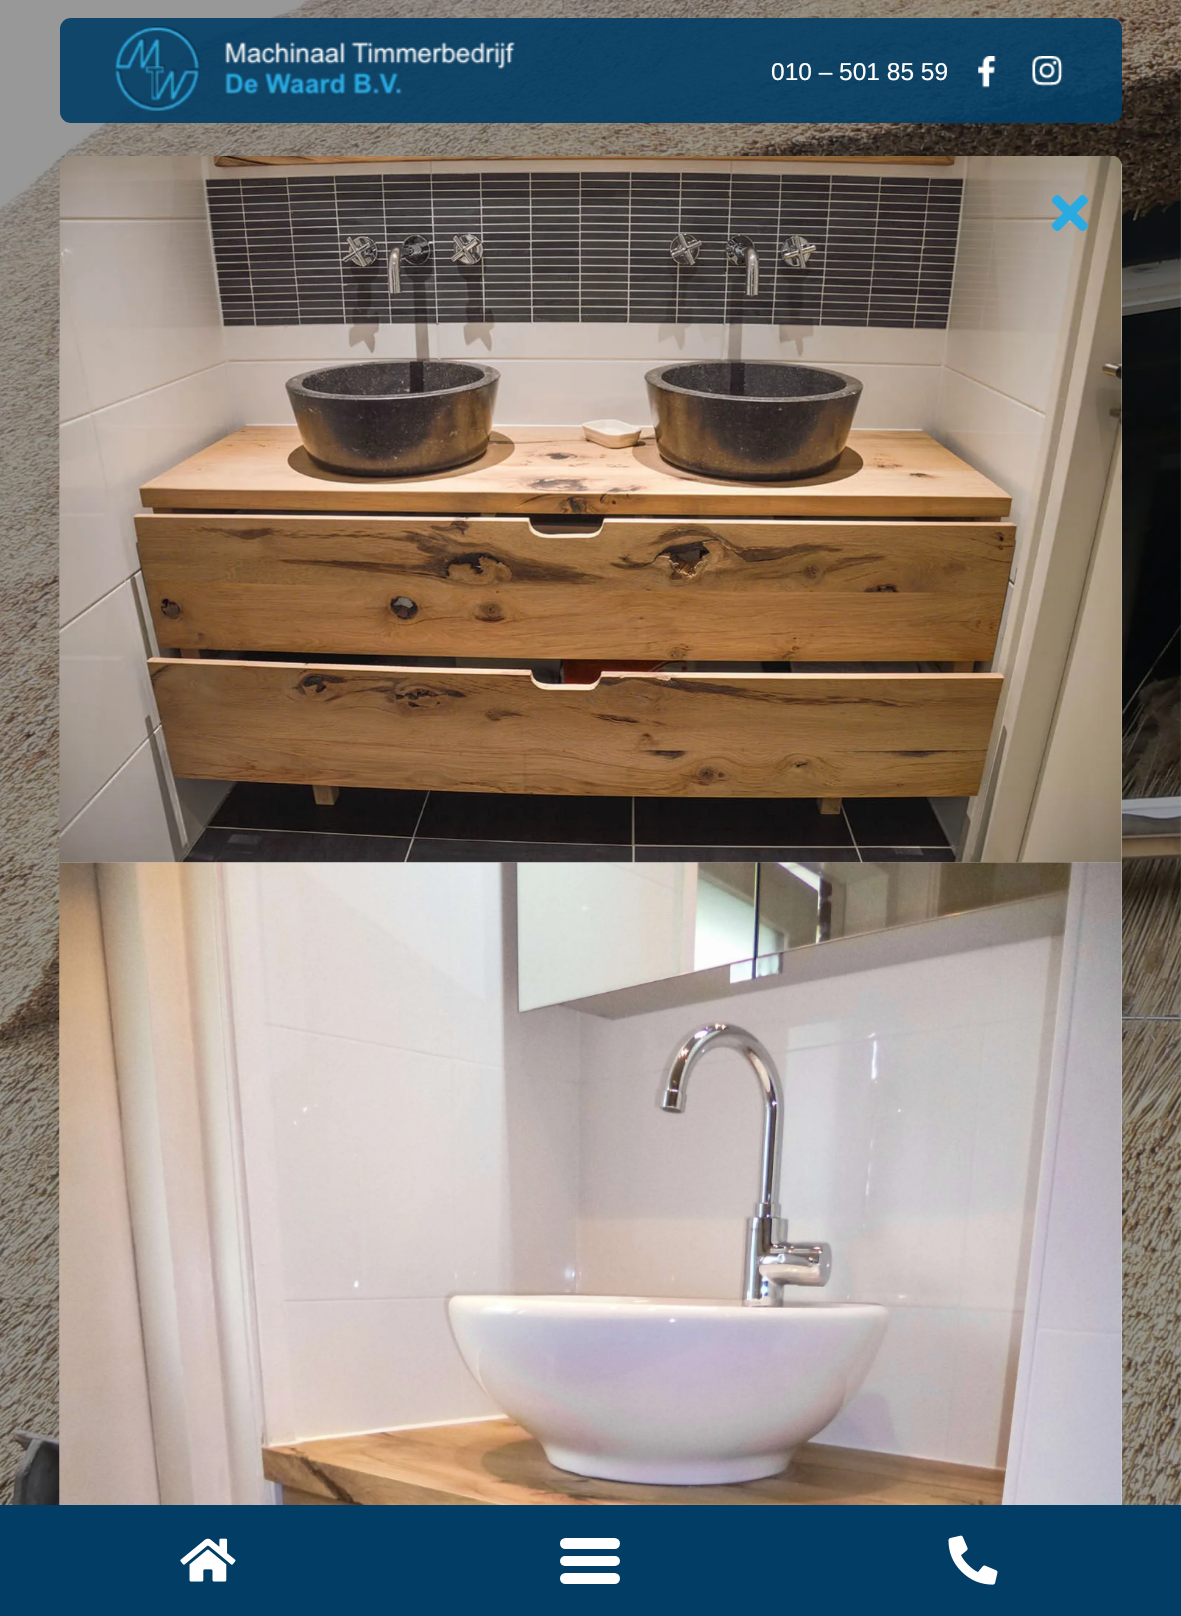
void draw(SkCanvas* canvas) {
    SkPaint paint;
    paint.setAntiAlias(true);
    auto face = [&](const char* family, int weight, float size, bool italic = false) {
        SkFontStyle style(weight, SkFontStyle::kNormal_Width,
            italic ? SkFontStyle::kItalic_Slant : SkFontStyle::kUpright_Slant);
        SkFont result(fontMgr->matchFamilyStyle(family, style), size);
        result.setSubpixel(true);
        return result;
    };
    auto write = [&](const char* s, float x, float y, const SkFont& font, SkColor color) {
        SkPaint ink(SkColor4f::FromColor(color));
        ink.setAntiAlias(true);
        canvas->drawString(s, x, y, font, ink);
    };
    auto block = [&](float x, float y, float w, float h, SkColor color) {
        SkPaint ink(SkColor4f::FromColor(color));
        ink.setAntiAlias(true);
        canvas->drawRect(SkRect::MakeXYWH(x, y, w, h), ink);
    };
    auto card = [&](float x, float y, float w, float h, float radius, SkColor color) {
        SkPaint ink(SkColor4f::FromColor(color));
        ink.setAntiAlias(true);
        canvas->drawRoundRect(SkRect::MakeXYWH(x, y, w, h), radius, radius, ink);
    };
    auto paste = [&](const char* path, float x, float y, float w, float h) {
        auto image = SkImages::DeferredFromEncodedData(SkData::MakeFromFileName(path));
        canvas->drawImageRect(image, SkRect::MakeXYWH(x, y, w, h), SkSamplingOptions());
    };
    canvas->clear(SK_ColorWHITE);
    paste("pic1.png", 0, 0, 1181, 1505);
    card(60, 18, 1062, 105, 11, SkColorSetARGB(230, 1, 61, 101));
    paste("pic2.png", 115, 26, 400, 85);
    auto kFont1 = face("Liberation Sans", 400, 24.5f);
    write("010 – 501 85 59", 771, 80, kFont1, SK_ColorWHITE);
    paste("pic3.png", 978, 56, 18, 32);
    paste("pic4.png", 1032, 56, 31, 30);
    card(60, 156, 1062, 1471, 11, SkColorSetARGB(204, 255, 255, 255));
    paste("pic5.png", 59, 156, 1063, 707);
    paste("pic6.png", 59, 862, 1063, 643);
    paste("pic7.png", 1051, 195, 37, 37);
    block(0, 1505, 1181, 111, SkColorSetRGB(1, 61, 101));
    paste("pic8.png", 180, 1538, 56, 44);
    card(560, 1538, 60, 11, 5.5f, SK_ColorWHITE);
    card(560, 1556, 60, 10, 5, SK_ColorWHITE);
    card(560, 1573, 60, 11, 5.5f, SK_ColorWHITE);
    paste("pic9.png", 948, 1535, 50, 50);
}
